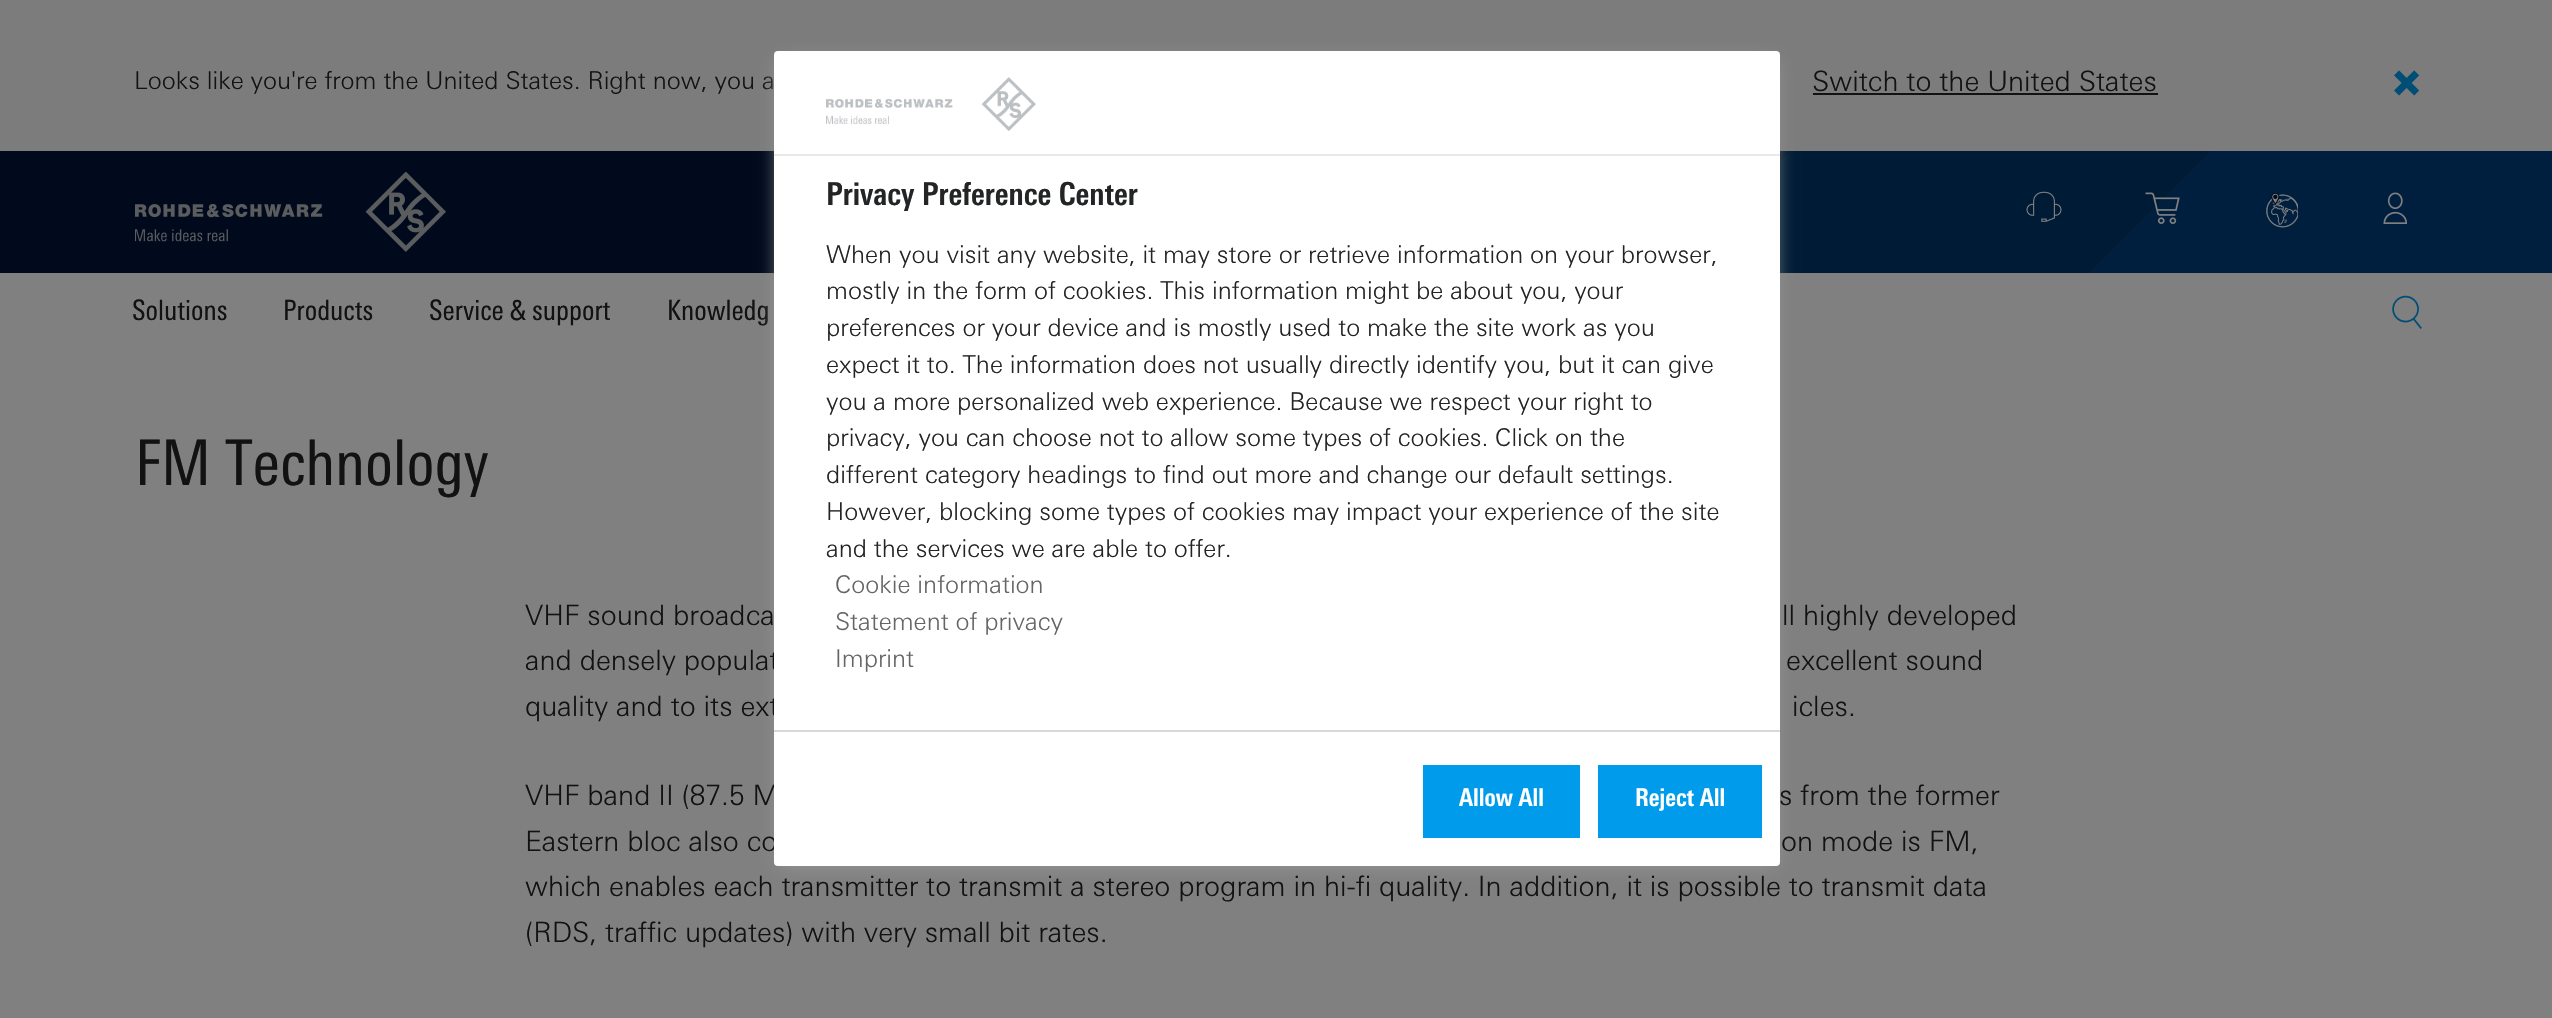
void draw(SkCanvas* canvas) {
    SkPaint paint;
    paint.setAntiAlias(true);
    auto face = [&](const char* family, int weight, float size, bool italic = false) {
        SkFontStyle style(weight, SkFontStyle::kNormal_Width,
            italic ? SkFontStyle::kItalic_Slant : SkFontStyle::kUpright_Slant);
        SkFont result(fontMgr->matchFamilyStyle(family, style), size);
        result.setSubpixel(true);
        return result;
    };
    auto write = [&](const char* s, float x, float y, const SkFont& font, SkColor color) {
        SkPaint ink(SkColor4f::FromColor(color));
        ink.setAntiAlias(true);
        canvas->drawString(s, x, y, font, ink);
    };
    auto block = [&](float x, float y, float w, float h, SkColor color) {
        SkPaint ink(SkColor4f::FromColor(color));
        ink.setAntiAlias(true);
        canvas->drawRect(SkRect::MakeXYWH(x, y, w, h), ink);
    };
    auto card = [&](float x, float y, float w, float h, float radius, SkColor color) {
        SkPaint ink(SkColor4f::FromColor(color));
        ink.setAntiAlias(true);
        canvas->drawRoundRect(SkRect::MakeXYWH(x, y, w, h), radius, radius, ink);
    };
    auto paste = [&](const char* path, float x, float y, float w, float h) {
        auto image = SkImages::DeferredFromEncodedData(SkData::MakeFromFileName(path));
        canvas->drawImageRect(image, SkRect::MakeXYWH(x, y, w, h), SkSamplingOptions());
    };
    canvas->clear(SkColorSetRGB(128, 128, 128));
    block(0, 0, 2552, 151, SkColorSetRGB(124, 124, 124));
    auto kFont1 = face("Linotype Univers", 300, 24.5f);
    write("Looks like you're from the United States. Right now, you a", 134, 89, kFont1, SkColorSetRGB(18, 18, 19));
    auto kFont2 = face("Linotype Univers", 300, 28);
    write("Switch to the United States", 1812, 91, kFont2, SkColorSetRGB(18, 18, 19));
    block(1813, 93, 345, 2, SkColorSetRGB(18, 18, 19));
    paste("pic1.png", 2394, 70, 26, 26);
    block(0, 151, 774, 122, SkColorSetRGB(0, 10, 28));
    canvas->save();
    canvas->clipRect(SkRect::MakeXYWH(663, 151, 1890, 122));
    paint.setColor(SkColorSetRGB(0, 22, 46));
    canvas->drawPath(SkPathBuilder().moveTo(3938, 515).lineTo(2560, -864).lineTo(1181, 515).lineTo(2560, 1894).close().detach(), paint);
    paint.setColor(SkColorSetRGB(0, 27, 54));
    canvas->drawPath(SkPathBuilder().moveTo(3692, 515).lineTo(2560, -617).lineTo(1427, 515).lineTo(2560, 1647).close().detach(), paint);
    paint.setColor(SkColorSetRGB(0, 31, 62));
    canvas->drawPath(SkPathBuilder().moveTo(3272, 515).lineTo(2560, -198).lineTo(1847, 515).lineTo(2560, 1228).close().detach(), paint);
    canvas->restore();
    paste("pic2.png", 135, 172, 311, 80);
    paste("pic3.png", 2026, 191, 36, 31);
    paste("pic4.png", 2145, 192, 35, 32);
    paste("pic5.png", 2266, 193, 32, 35);
    paste("pic6.png", 2383, 192, 24, 32);
    auto kFont3 = face("Linotype Univers", 400, 28);
    write("Solutions", 132, 320, kFont3, SkColorSetRGB(18, 18, 19));
    write("Products", 283, 320, kFont3, SkColorSetRGB(18, 18, 19));
    write("Service & support", 429, 320, kFont3, SkColorSetRGB(18, 18, 19));
    write("Knowledg", 667, 320, kFont3, SkColorSetRGB(18, 18, 19));
    paste("pic7.png", 2392, 295, 30, 34);
    paint.setColor(SkColorSetRGB(153, 153, 153));
    paint.setMaskFilter(SkMaskFilter::MakeBlur(kNormal_SkBlurStyle, 9));
    canvas->drawRect(SkRect::MakeXYWH(779, 60, 996, 805), paint);
    paint.setMaskFilter(nullptr);
    write("and densely populat", 525, 670, kFont2, SkColorSetRGB(18, 18, 19));
    write("quality and to its ext", 525, 716, kFont2, SkColorSetRGB(18, 18, 19));
    write("VHF band II (87.5 M", 525, 805, kFont2, SkColorSetRGB(18, 18, 19));
    write("Eastern bloc also co", 525, 851, kFont2, SkColorSetRGB(18, 18, 19));
    card(774, 51, 1006, 815, 4, SK_ColorWHITE);
    block(774, 154, 1006, 2, SkColorSetRGB(233, 233, 233));
    paste("pic8.png", 826, 77, 210, 54);
    auto kFont4 = face("Linotype Univers", 700, 31.5f);
    write("Privacy Preference Center", 826, 205, kFont4, SkColorSetRGB(35, 36, 37));
    write("When you visit any website, it may store or retrieve information on your browser,", 826, 263, kFont1, SkColorSetRGB(35, 36, 37));
    write("mostly in the form of cookies. This information might be about you, your", 826, 299, kFont1, SkColorSetRGB(35, 36, 37));
    write("preferences or your device and is mostly used to make the site work as you", 826, 336, kFont1, SkColorSetRGB(35, 36, 37));
    write("expect it to. The information does not usually directly identify you, but it can give", 826, 373, kFont1, SkColorSetRGB(35, 36, 37));
    write("you a more personalized web experience. Because we respect your right to", 826, 410, kFont1, SkColorSetRGB(35, 36, 37));
    write("privacy, you can choose not to allow some types of cookies. Click on the", 826, 446, kFont1, SkColorSetRGB(35, 36, 37));
    write("different category headings to find out more and change our default settings.", 826, 483, kFont1, SkColorSetRGB(35, 36, 37));
    write("However, blocking some types of cookies may impact your experience of the site", 826, 520, kFont1, SkColorSetRGB(35, 36, 37));
    write("and the services we are able to offer.", 826, 557, kFont1, SkColorSetRGB(35, 36, 37));
    write("Cookie information", 835, 593, kFont1, SkColorSetRGB(101, 101, 101));
    write("Statement of privacy", 835, 630, kFont1, SkColorSetRGB(101, 101, 101));
    write("Imprint", 835, 667, kFont1, SkColorSetRGB(101, 101, 101));
    block(774, 730, 1006, 2, SkColorSetRGB(216, 216, 216));
    block(1423, 765, 157, 73, SkColorSetRGB(0, 155, 234));
    auto kFont5 = face("Linotype Univers", 700, 24.5f);
    write("Allow All", 1459, 806, kFont5, SK_ColorWHITE);
    block(1598, 765, 164, 73, SkColorSetRGB(0, 155, 234));
    write("Reject All", 1635, 806, kFont5, SK_ColorWHITE);
    auto kFont6 = face("Linotype Univers", 400, 63);
    write("FM Technology", 135, 485, kFont6, SkColorSetRGB(18, 18, 19));
    write("VHF sound broadca", 525, 625, kFont2, SkColorSetRGB(18, 18, 19));
    write("ll highly developed", 1782, 625, kFont2, SkColorSetRGB(18, 18, 19));
    write("excellent sound", 1786, 670, kFont2, SkColorSetRGB(18, 18, 19));
    write("icles.", 1792, 716, kFont2, SkColorSetRGB(18, 18, 19));
    write("s from the former", 1779, 805, kFont2, SkColorSetRGB(18, 18, 19));
    write("on mode is FM,", 1781, 851, kFont2, SkColorSetRGB(18, 18, 19));
    write("which enables each transmitter to transmit a stereo program in hi-fi quality. In addition, it is possible to transmit data", 525, 896, kFont2, SkColorSetRGB(18, 18, 19));
    write("(RDS, traffic updates) with very small bit rates.", 525, 942, kFont2, SkColorSetRGB(18, 18, 19));
}
